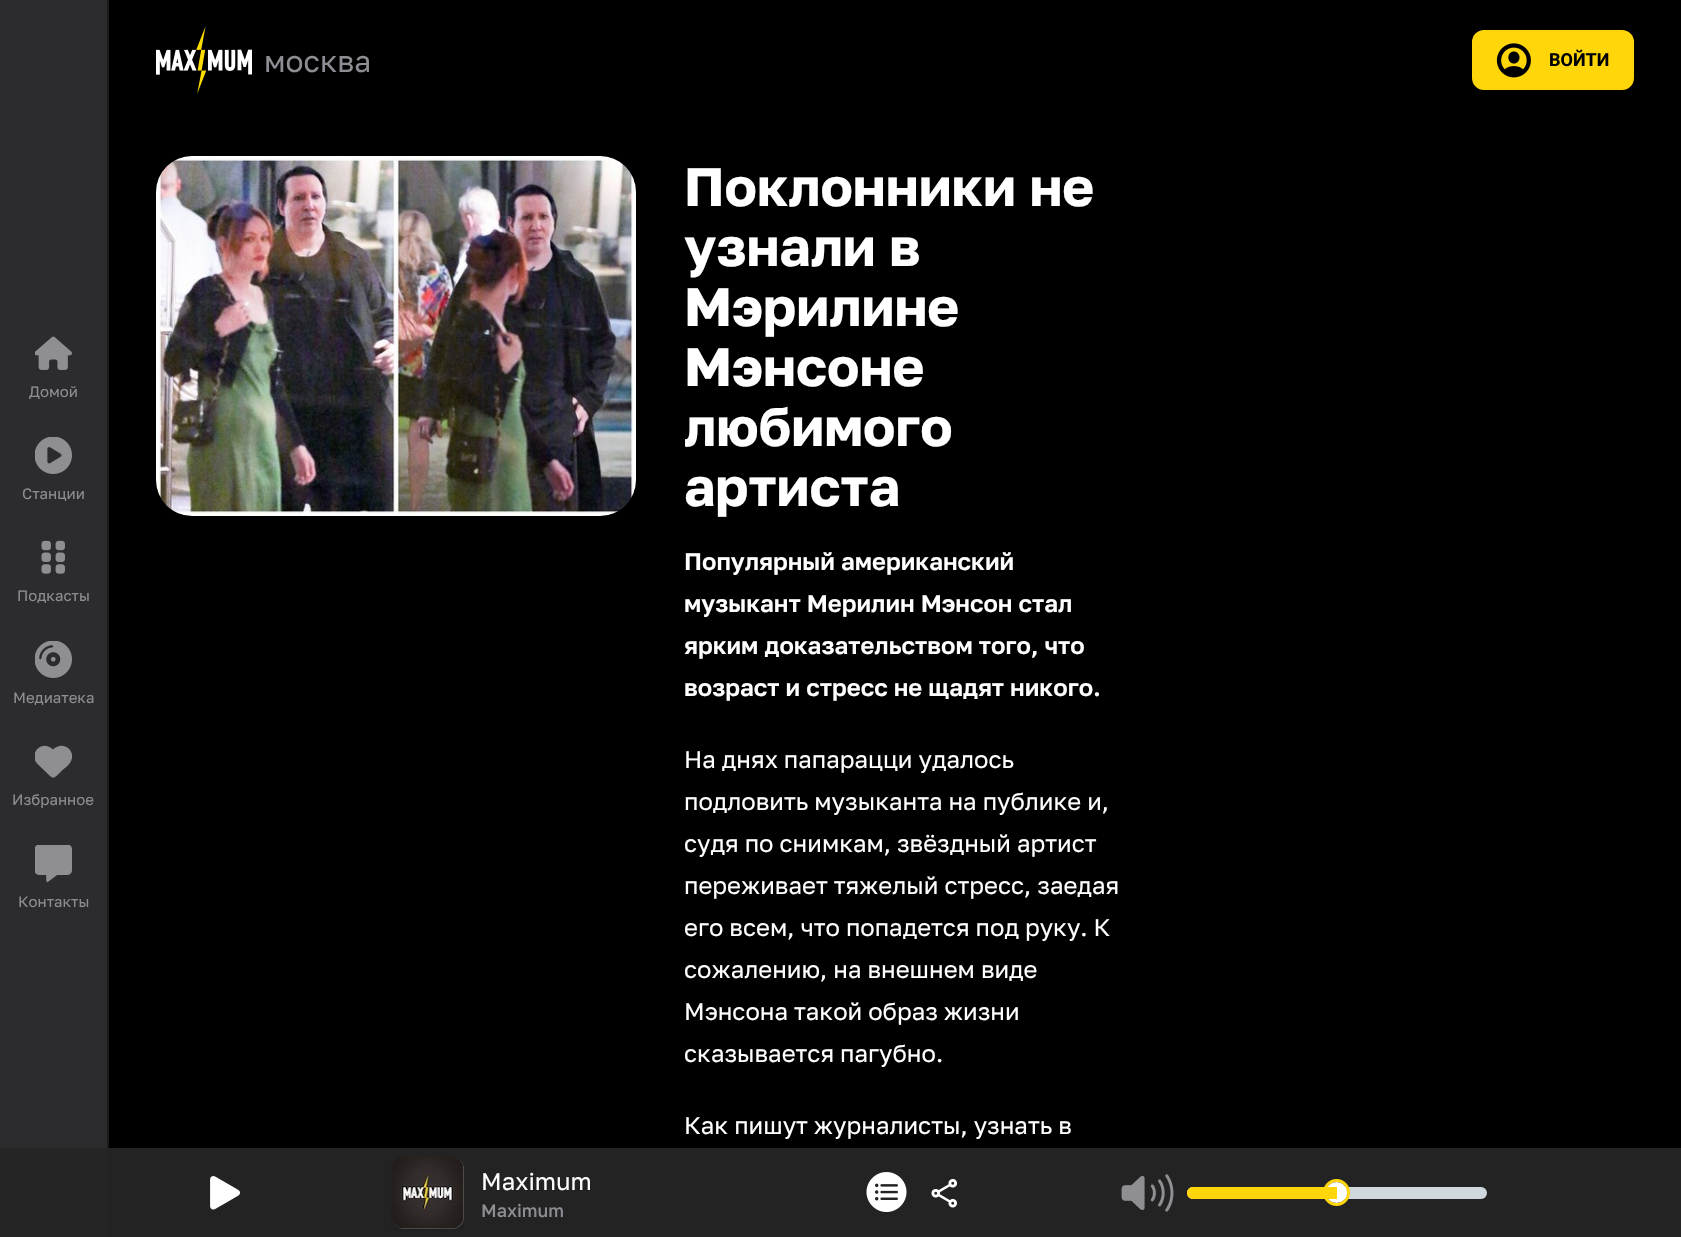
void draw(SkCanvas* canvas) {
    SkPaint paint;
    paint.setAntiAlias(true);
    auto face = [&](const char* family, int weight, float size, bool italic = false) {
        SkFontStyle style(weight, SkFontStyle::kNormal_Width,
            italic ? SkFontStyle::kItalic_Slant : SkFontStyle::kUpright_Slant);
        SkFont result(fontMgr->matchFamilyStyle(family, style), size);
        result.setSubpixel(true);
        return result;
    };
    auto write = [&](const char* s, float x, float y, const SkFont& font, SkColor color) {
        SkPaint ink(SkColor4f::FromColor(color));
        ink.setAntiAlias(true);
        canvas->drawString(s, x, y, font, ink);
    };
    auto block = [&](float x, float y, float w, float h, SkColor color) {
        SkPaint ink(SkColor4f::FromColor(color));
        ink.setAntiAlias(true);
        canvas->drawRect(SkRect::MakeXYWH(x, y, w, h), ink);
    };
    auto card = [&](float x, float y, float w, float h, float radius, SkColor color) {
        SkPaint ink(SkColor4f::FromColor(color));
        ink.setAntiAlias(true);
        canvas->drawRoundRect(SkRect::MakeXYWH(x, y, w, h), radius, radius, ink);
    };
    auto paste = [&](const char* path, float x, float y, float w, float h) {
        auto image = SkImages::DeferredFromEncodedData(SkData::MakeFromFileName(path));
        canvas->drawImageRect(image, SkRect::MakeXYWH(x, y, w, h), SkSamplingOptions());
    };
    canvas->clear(SK_ColorBLACK);
    block(109, 1148, 1572, 89, SkColorSetRGB(35, 35, 35));
    block(0, 0, 107, 1148, SkColorSetRGB(44, 44, 46));
    block(0, 1148, 107, 89, SkColorSetRGB(37, 37, 38));
    block(107, 0, 2, 1148, SkColorSetRGB(28, 28, 30));
    block(107, 1148, 2, 89, SkColorSetRGB(36, 36, 37));
    paste("pic1.png", 35, 336, 37, 34);
    auto kFont1 = face("Golos Text", 400, 15);
    write("Домой", 29, 397, kFont1, SkColorSetRGB(141, 141, 147));
    paste("pic2.png", 35, 437, 37, 37);
    write("Станции", 22, 499, kFont1, SkColorSetRGB(141, 141, 147));
    paste("pic3.png", 41, 540, 24, 34);
    write("Подкасты", 17, 601, kFont1, SkColorSetRGB(141, 141, 147));
    paste("pic4.png", 35, 641, 37, 37);
    write("Медиатека", 13, 703, kFont1, SkColorSetRGB(141, 141, 147));
    canvas->save();
    canvas->clipRect(SkRect::MakeXYWH(35, 743, 37, 37));
    paint.setColor(SkColorSetRGB(142, 142, 147));
    canvas->drawPath(SkPathBuilder().moveTo(38, 764.5f).lineTo(49, 775).cubicTo(53, 778.5f, 53.5f, 778.5f, 57.5f, 775).lineTo(62, 770.5f).cubicTo(65, 768, 68.5f, 765.5f, 70.5f, 762).cubicTo(77, 751, 63, 739.5f, 53, 749.5f).cubicTo(41.5f, 738, 27.5f, 755, 38, 764.5f).detach(), paint);
    canvas->restore();
    write("Избранное", 12, 805, kFont1, SkColorSetRGB(141, 141, 147));
    paste("pic5.png", 35, 845, 37, 37);
    write("Контакты", 18, 907, kFont1, SkColorSetRGB(141, 141, 147));
    paste("pic6.png", 156, 26, 96, 68);
    auto kFont2 = face("Golos Text", 400, 30);
    write("москва", 264, 72, kFont2, SkColorSetRGB(141, 141, 147));
    card(1472, 30, 162, 60, 12, SkColorSetRGB(255, 214, 10));
    paste("pic7.png", 1496, 43, 35, 35);
    auto kFont3 = face("Roboto", 700, 18);
    write("ВОЙТИ", 1549, 66, kFont3, SK_ColorBLACK);
    paste("pic8.png", 156, 156, 480, 360);
    auto kFont4 = face("Golos Text", 700, 54);
    write("Поклонники не", 684, 206, kFont4, SK_ColorWHITE);
    write("узнали в", 684, 266, kFont4, SK_ColorWHITE);
    write("Мэрилине", 684, 326, kFont4, SK_ColorWHITE);
    write("Мэнсоне", 684, 386, kFont4, SK_ColorWHITE);
    write("любимого", 684, 446, kFont4, SK_ColorWHITE);
    write("артиста", 684, 506, kFont4, SK_ColorWHITE);
    auto kFont5 = face("Golos Text", 600, 24);
    write("Популярный американский", 684, 570, kFont5, SK_ColorWHITE);
    write("музыкант Мерилин Мэнсон стал", 684, 612, kFont5, SK_ColorWHITE);
    write("ярким доказательством того, что", 684, 654, kFont5, SK_ColorWHITE);
    write("возраст и стресс не щадят никого.", 684, 696, kFont5, SK_ColorWHITE);
    auto kFont6 = face("Golos Text", 400, 24);
    write("На днях папарацци удалось", 684, 768, kFont6, SK_ColorWHITE);
    write("подловить музыканта на публике и,", 684, 810, kFont6, SK_ColorWHITE);
    write("судя по снимкам, звёздный артист", 684, 852, kFont6, SK_ColorWHITE);
    write("переживает тяжелый стресс, заедая", 684, 894, kFont6, SK_ColorWHITE);
    write("его всем, что попадется под руку. К", 684, 936, kFont6, SK_ColorWHITE);
    write("сожалению, на внешнем виде", 684, 978, kFont6, SK_ColorWHITE);
    write("Мэнсона такой образ жизни", 684, 1020, kFont6, SK_ColorWHITE);
    write("сказывается пагубно.", 684, 1062, kFont6, SK_ColorWHITE);
    write("Как пишут журналисты, узнать в", 684, 1134, kFont6, SK_ColorWHITE);
    paste("pic9.png", 210, 1176, 31, 34);
    card(392, 1157, 72, 72, 12, SkColorSetRGB(97, 97, 97));
    paste("pic10.png", 391, 1157, 73, 73);
    write("Maximum", 481, 1190, kFont6, SK_ColorWHITE);
    auto kFont7 = face("Golos Text", 500, 18);
    write("Maximum", 481, 1217, kFont7, SkColorSetRGB(141, 141, 147));
    paste("pic11.png", 866, 1172, 41, 40);
    paste("pic12.png", 931, 1179, 26, 29);
    paste("pic13.png", 1121, 1174, 53, 38);
    card(1187, 1187, 300, 12, 6, SkColorSetRGB(207, 216, 220));
    paint.setStyle(SkPaint::kStroke_Style);
    paint.setStrokeWidth(3);
    paint.setColor(SkColorSetRGB(255, 214, 10));
    canvas->drawCircle(1336.5f, 1192.5f, 12, paint);
    paint.setStyle(SkPaint::kFill_Style);
    paint.setColor(SK_ColorWHITE);
    canvas->drawCircle(1336.5f, 1192.5f, 10.5f, paint);
    paint.setColor(SkColorSetRGB(255, 214, 10));
    canvas->drawPath(SkPathBuilder().moveTo(1193, 1187).lineTo(1337, 1187).lineTo(1337, 1199).lineTo(1193, 1199).cubicTo(1189.5f, 1199, 1187, 1196.5f, 1187, 1193).cubicTo(1187, 1189.5f, 1189.5f, 1187, 1193, 1187).close().detach(), paint);
}
